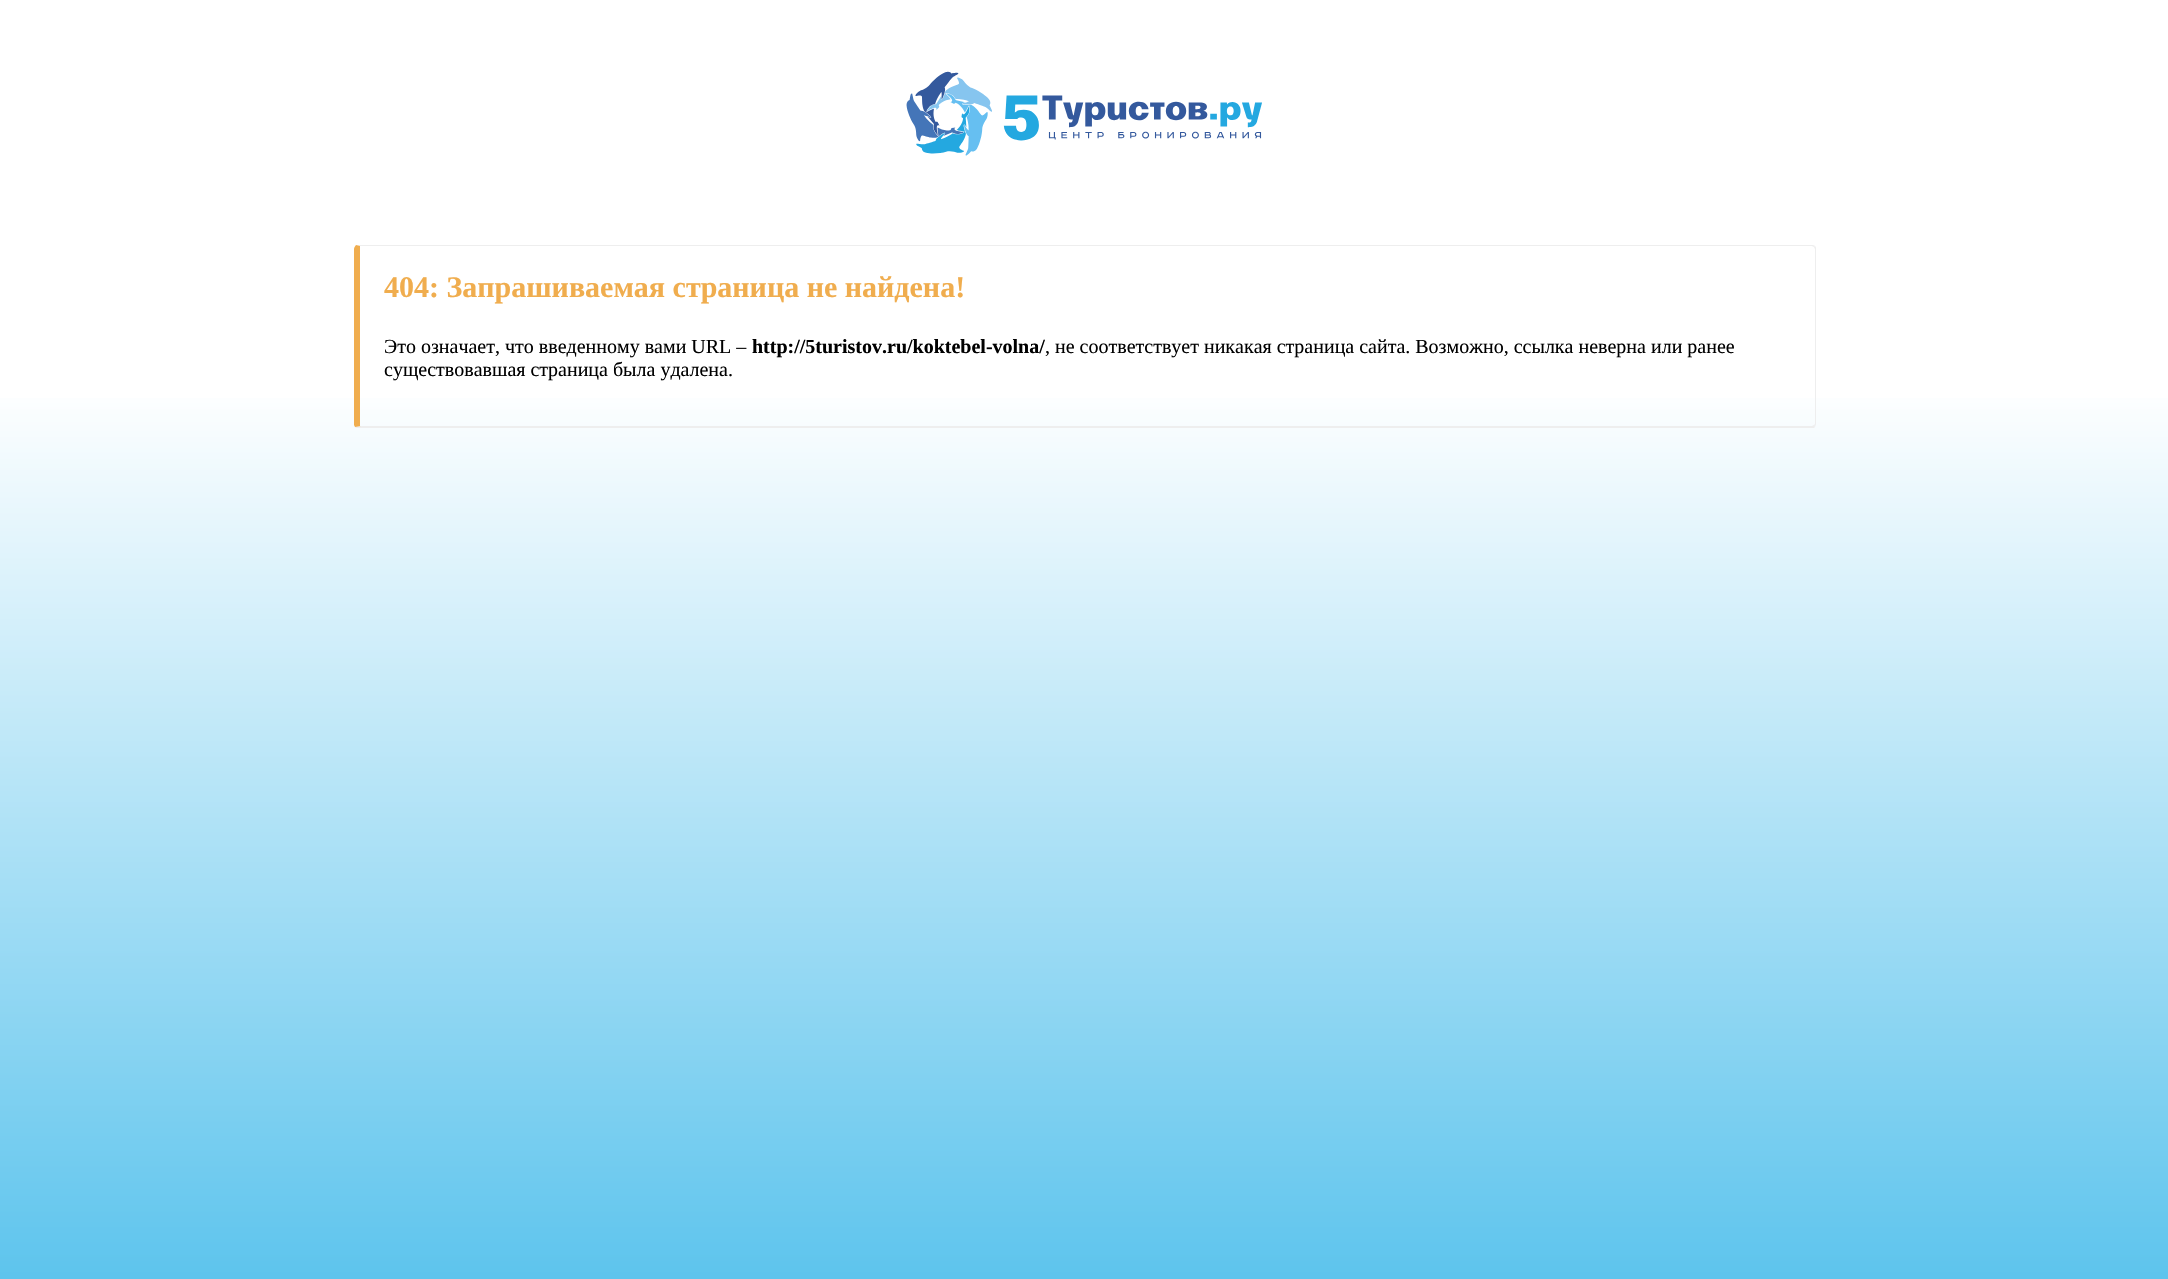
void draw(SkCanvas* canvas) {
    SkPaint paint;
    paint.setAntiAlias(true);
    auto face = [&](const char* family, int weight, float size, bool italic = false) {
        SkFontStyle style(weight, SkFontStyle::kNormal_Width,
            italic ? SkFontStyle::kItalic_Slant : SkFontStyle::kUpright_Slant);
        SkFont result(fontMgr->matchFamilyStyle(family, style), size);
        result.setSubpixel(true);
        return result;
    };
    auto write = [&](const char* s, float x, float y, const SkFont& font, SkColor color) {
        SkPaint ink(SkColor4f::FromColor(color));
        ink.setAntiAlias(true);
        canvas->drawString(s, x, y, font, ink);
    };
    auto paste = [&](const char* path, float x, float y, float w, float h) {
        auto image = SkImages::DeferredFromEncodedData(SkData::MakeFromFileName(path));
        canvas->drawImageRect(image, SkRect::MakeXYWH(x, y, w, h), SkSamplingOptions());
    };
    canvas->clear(SK_ColorWHITE);
    {
        const SkColor colors[] = {SK_ColorWHITE, SkColorSetRGB(93, 196, 237)};
        const float stops[] = {0.3f, 1};
        const SkPoint ends[] = {{1084, 0}, {1084, 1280}};
        paint.setShader(SkGradientShader::MakeLinear(ends, colors, stops, 2, SkTileMode::kClamp));
        paint.setAlpha(255);
    }
    canvas->drawRect(SkRect::MakeXYWH(0, 398, 2168, 881), paint);
    paste("pic1.png", 906, 71, 356, 85);
    paint.setShader(nullptr);
    paint.setColor(SkColorSetRGB(238, 238, 238));
    canvas->drawPath(SkPathBuilder().moveTo(358, 245).lineTo(356, 245).lineTo(360, 246).lineTo(1812, 246).lineTo(1814, 247).lineTo(1815, 246).cubicTo(1814, 245, 1813, 245, 1812, 245).close().detach(), paint);
    canvas->drawPath(SkPathBuilder().moveTo(1815, 246).cubicTo(1816, 247, 1816, 248, 1816, 249).lineTo(1816, 424).lineTo(1815, 427).lineTo(1814, 425).lineTo(1815, 424).lineTo(1815, 249).lineTo(1814, 247).close().detach(), paint);
    canvas->drawPath(SkPathBuilder().moveTo(356, 428).lineTo(355, 427).lineTo(361, 426).lineTo(1812, 426).lineTo(1814, 425).lineTo(1815, 427).lineTo(1814, 428).close().detach(), paint);
    paint.setColor(SkColorSetRGB(240, 173, 78));
    canvas->drawPath(SkPathBuilder().moveTo(356, 245).cubicTo(355, 246, 354, 248, 354, 249).lineTo(354, 425).lineTo(355, 427).lineTo(361, 426).lineTo(360, 426).lineTo(360, 246).close().detach(), paint);
    auto kFont1 = face("Liberation Serif", 700, 30);
    write("404: Запрашиваемая страница не найдена!", 384, 297, kFont1, SkColorSetRGB(240, 173, 78));
    auto kFont2 = face("Liberation Serif", 400, 20);
    write("Это означает, что введенному вами URL –", 384, 353, kFont2, SK_ColorBLACK);
    auto kFont3 = face("Liberation Serif", 700, 20);
    write("http://5turistov.ru/koktebel-volna/", 752, 353, kFont3, SK_ColorBLACK);
    write(", не соответствует никакая страница сайта. Возможно, ссылка неверна или ранее", 1045, 353, kFont2, SK_ColorBLACK);
    write("существовавшая страница была удалена.", 384, 376, kFont2, SK_ColorBLACK);
}
